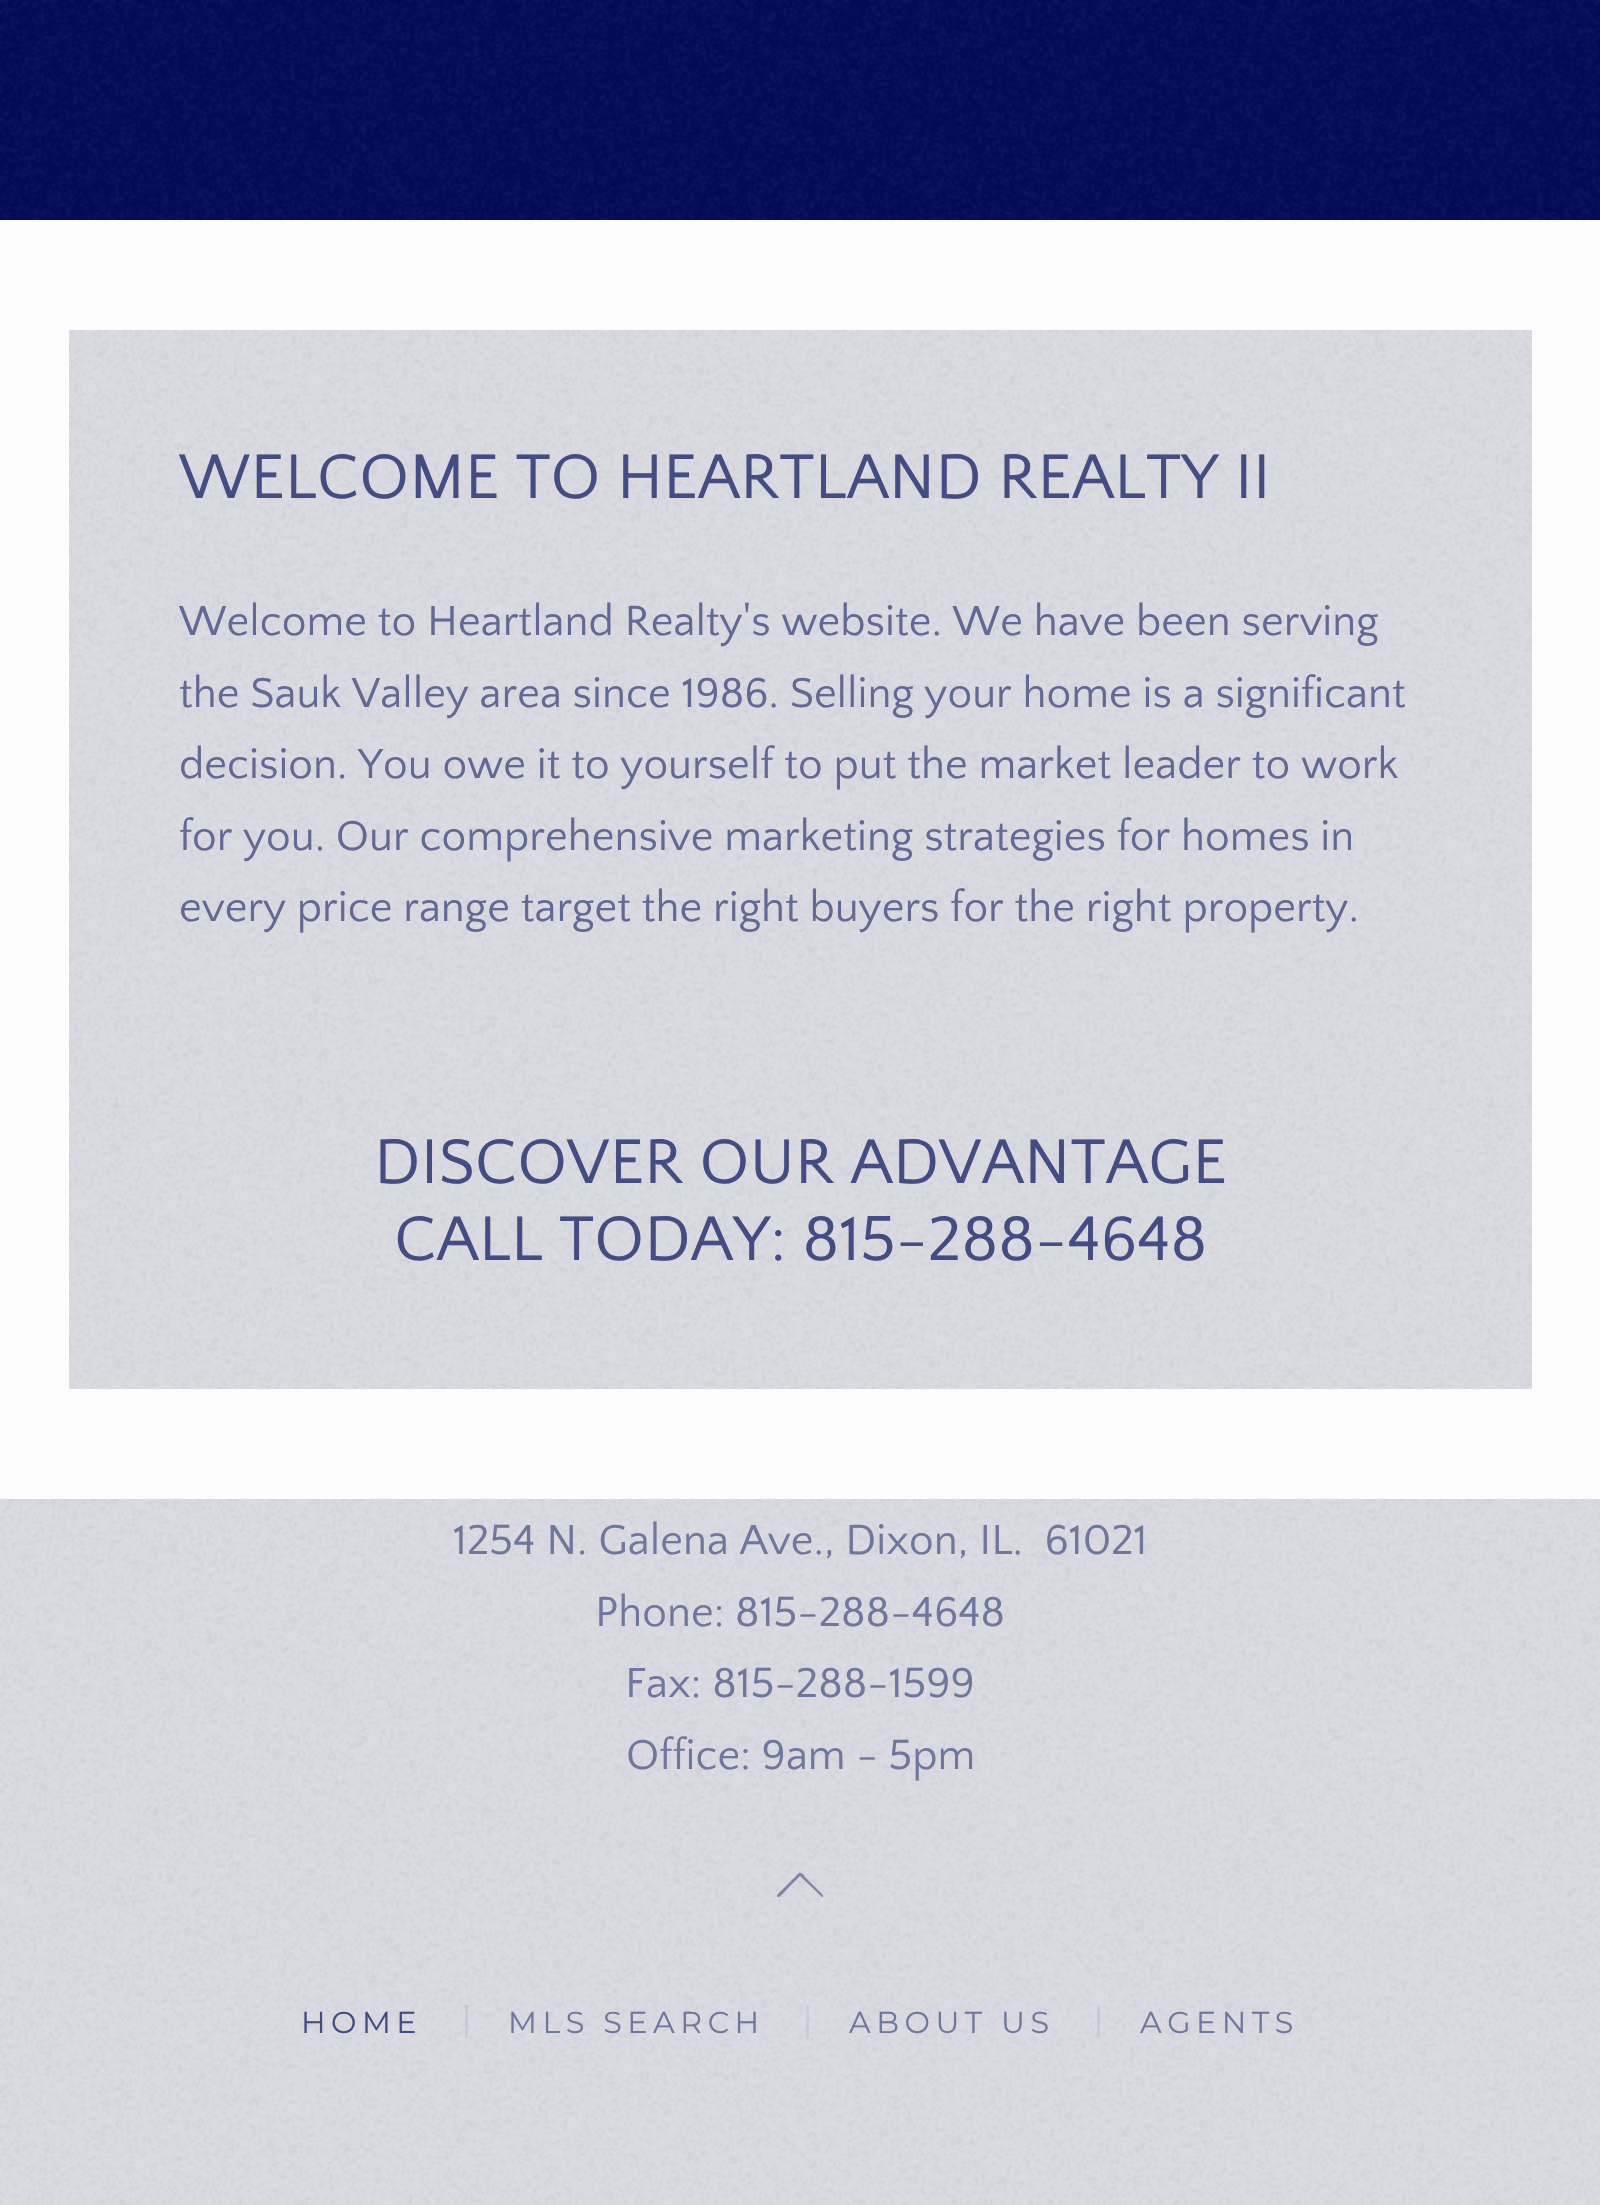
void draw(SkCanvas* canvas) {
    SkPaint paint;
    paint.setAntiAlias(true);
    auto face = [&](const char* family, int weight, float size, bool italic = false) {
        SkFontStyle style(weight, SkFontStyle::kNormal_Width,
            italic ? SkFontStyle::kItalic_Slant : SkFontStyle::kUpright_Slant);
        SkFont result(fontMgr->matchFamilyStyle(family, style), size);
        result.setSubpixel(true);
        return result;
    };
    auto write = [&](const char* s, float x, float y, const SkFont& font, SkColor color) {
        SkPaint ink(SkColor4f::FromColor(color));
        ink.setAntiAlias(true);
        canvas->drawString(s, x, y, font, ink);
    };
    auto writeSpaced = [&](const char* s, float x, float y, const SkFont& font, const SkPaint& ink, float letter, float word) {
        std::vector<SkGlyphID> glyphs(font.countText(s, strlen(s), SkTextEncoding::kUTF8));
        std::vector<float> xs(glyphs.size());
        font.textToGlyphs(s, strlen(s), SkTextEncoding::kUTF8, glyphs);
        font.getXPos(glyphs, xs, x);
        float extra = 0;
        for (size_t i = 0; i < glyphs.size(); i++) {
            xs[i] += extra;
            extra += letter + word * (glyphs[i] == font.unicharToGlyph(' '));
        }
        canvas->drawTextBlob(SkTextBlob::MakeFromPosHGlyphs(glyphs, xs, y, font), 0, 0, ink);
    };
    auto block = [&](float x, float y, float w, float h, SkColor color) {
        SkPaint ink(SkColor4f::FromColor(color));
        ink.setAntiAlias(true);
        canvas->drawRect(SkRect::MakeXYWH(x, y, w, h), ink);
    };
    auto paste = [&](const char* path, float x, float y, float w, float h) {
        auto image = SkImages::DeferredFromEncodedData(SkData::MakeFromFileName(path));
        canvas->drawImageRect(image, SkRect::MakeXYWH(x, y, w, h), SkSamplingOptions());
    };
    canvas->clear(SkColorSetRGB(218, 219, 226));
    paste("pic1.png", 0, 1499, 1600, 706);
    block(0, 0, 1600, 220, SkColorSetRGB(4, 10, 88));
    paste("pic2.png", 0, 0, 1600, 220);
    block(0, 220, 1600, 1279, SkColorSetRGB(252, 252, 252));
    block(69, 330, 1463, 1059, SkColorSetRGB(218, 219, 226));
    paste("pic3.png", 69, 330, 1463, 1059);
    auto kFont1 = face("Quattrocento Sans", 400, 66);
    write("WELCOME TO HEARTLAND REALTY II", 179, 498, kFont1, SkColorSetRGB(68, 77, 129));
    auto kFont2 = face("Quattrocento Sans", 400, 44);
    write("Welcome to Heartland Realty's website. We have been serving", 179, 635, kFont2, SkColorSetRGB(98, 105, 148));
    write("the Sauk Valley area since 1986. Selling your home is a significant", 179, 707, kFont2, SkColorSetRGB(98, 105, 148));
    write("decision. You owe it to yourself to put the market leader to work", 179, 778, kFont2, SkColorSetRGB(98, 105, 148));
    write("for you. Our comprehensive marketing strategies for homes in", 179, 850, kFont2, SkColorSetRGB(98, 105, 148));
    write("every price range target the right buyers for the right property.", 179, 921, kFont2, SkColorSetRGB(98, 105, 148));
    write("DISCOVER OUR ADVANTAGE", 374, 1183, kFont1, SkColorSetRGB(68, 77, 129));
    write("CALL TODAY: 815-288-4648", 394, 1260, kFont1, SkColorSetRGB(68, 77, 129));
    write("1254 N. Galena Ave., Dixon, IL.  61021", 453, 1554, kFont2, SkColorSetRGB(112, 119, 157));
    write("Phone: 815-288-4648", 595, 1626, kFont2, SkColorSetRGB(112, 119, 157));
    write("Fax: 815-288-1599", 625, 1697, kFont2, SkColorSetRGB(112, 119, 157));
    write("Office: 9am - 5pm", 626, 1769, kFont2, SkColorSetRGB(112, 119, 157));
    paint.setColor(SkColorSetARGB(153, 68, 77, 129));
    canvas->drawPath(SkPathBuilder().moveTo(800, 1876).lineTo(790, 1886).cubicTo(788, 1888, 780, 1898, 778, 1897).cubicTo(777, 1897, 777, 1896, 777, 1895).lineTo(799, 1873).cubicTo(802, 1872, 804, 1875, 805, 1877).lineTo(819, 1891).cubicTo(821, 1893, 824, 1895, 823, 1897).lineTo(822, 1897).close().detach(), paint);
    auto kFont3 = face("Montserrat", 400, 30.25f);
    paint.setColor(SkColorSetRGB(68, 77, 129));
    writeSpaced("HOME", 301, 2033, kFont3, paint, 5.5f, 0);
    block(465, 2005, 3, 33, SkColorSetARGB(26, 68, 77, 129));
    paint.setColor(SkColorSetRGB(112, 119, 157));
    writeSpaced("MLS SEARCH", 508, 2033, kFont3, paint, 5.5f, 0);
    block(806, 2005, 3, 33, SkColorSetARGB(26, 68, 77, 129));
    writeSpaced("ABOUT US", 849, 2033, kFont3, paint, 5.5f, 0);
    block(1097, 2005, 3, 33, SkColorSetARGB(26, 68, 77, 129));
    writeSpaced("AGENTS", 1140, 2033, kFont3, paint, 5.5f, 0);
}
